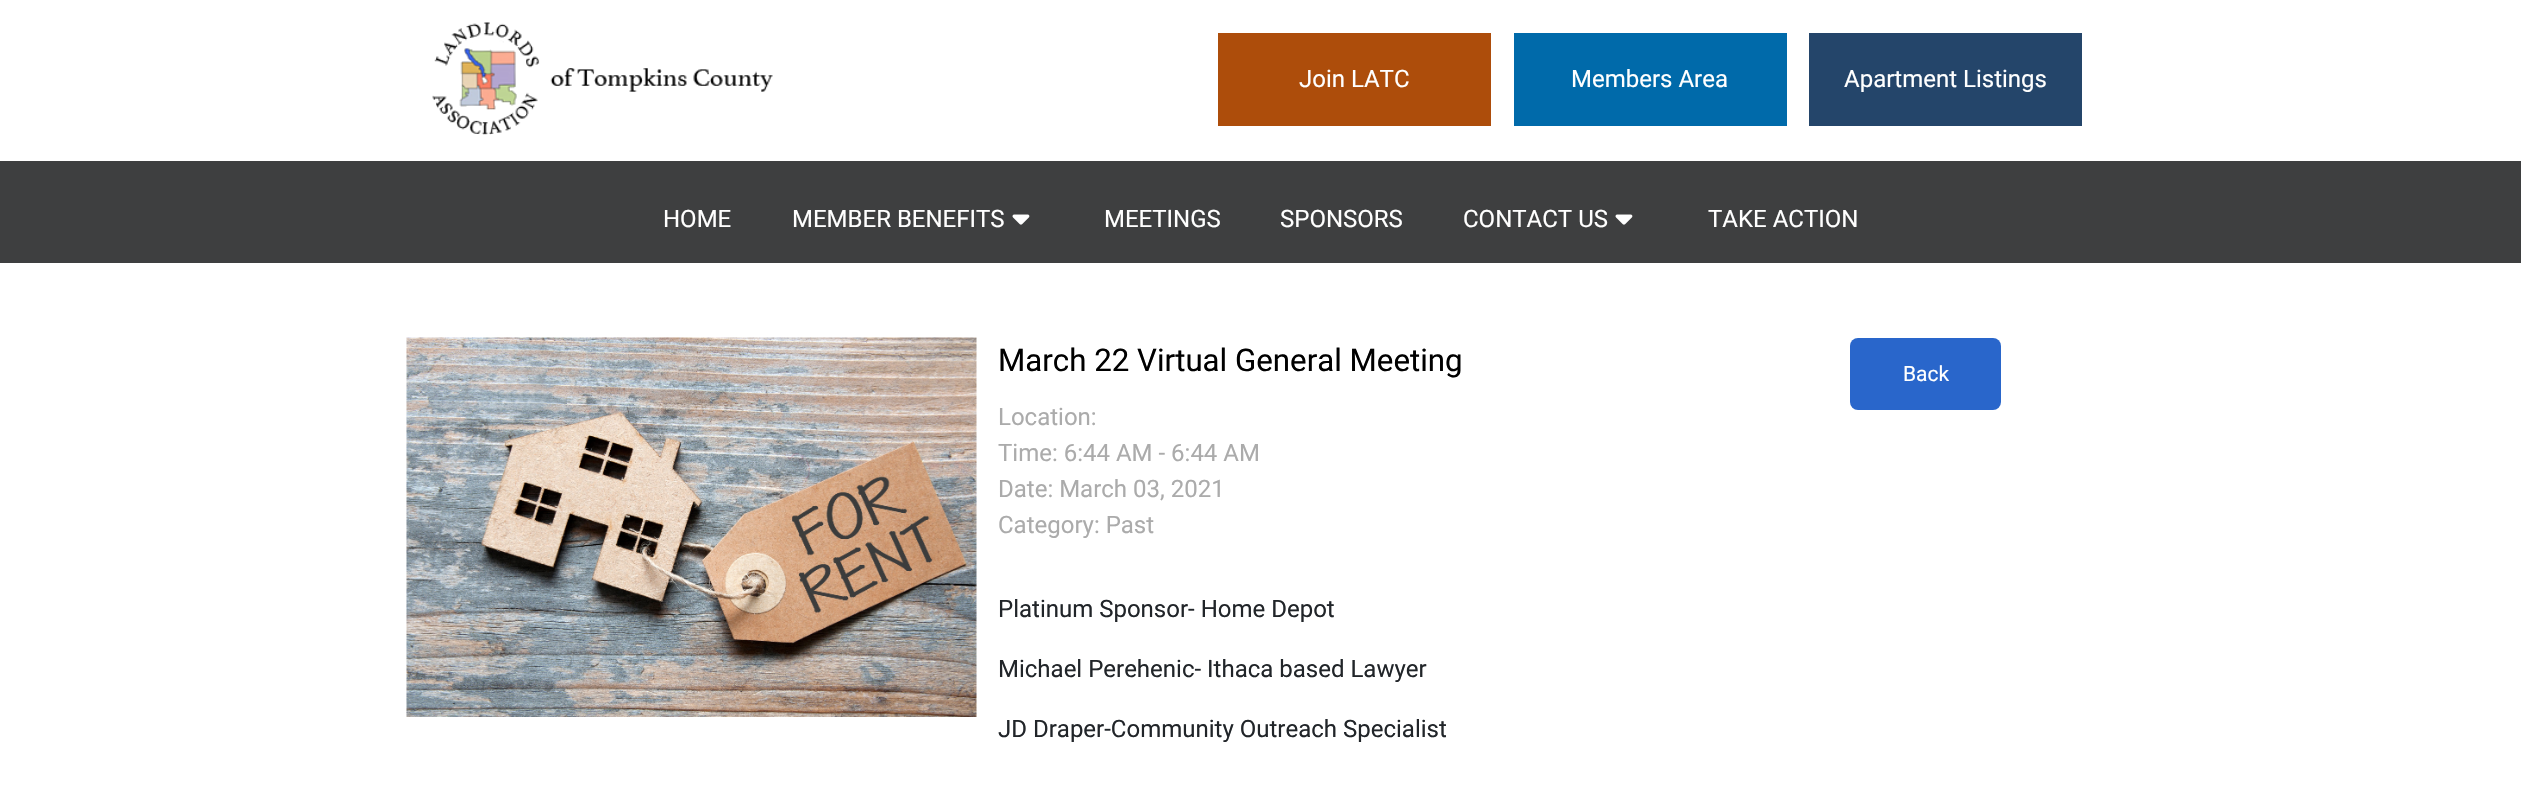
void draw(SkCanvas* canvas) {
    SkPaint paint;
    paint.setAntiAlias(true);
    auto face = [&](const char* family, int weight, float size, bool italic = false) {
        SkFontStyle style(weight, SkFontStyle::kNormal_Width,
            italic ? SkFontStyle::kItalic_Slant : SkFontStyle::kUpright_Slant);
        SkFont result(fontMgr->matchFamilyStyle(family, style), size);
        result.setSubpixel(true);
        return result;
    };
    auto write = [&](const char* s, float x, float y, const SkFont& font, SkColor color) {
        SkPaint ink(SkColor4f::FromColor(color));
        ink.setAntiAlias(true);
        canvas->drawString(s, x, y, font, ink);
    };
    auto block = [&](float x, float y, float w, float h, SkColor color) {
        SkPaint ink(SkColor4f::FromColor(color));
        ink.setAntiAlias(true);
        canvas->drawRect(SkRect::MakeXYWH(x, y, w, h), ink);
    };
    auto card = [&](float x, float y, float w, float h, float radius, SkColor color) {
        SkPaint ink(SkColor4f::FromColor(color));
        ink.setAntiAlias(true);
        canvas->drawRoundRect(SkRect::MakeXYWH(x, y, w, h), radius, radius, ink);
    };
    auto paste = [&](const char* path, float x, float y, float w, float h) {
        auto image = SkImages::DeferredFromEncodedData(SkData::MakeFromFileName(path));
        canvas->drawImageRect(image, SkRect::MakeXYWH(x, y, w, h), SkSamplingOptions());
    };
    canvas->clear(SK_ColorWHITE);
    paste("pic1.png", 432, 22, 341, 113);
    block(1218, 33, 273, 93, SkColorSetRGB(173, 77, 11));
    auto kFont1 = face("Roboto", 400, 24);
    write("Join LATC", 1299, 87, kFont1, SK_ColorWHITE);
    block(1514, 33, 273, 93, SkColorSetRGB(0, 106, 170));
    write("Members Area", 1571, 87, kFont1, SK_ColorWHITE);
    block(1809, 33, 273, 93, SkColorSetRGB(36, 69, 106));
    write("Apartment Listings", 1844, 87, kFont1, SK_ColorWHITE);
    block(0, 161, 2521, 102, SkColorSetRGB(62, 63, 64));
    write("HOME", 663, 227, kFont1, SK_ColorWHITE);
    write("MEMBER BENEFITS", 792, 227, kFont1, SK_ColorWHITE);
    paste("pic2.png", 1012, 214, 18, 11);
    write("MEETINGS", 1104, 227, kFont1, SK_ColorWHITE);
    write("SPONSORS", 1280, 227, kFont1, SK_ColorWHITE);
    write("CONTACT US", 1463, 227, kFont1, SK_ColorWHITE);
    paste("pic2.png", 1615, 214, 18, 11);
    write("TAKE ACTION", 1708, 227, kFont1, SK_ColorWHITE);
    paste("pic3.png", 406, 337, 571, 380);
    auto kFont2 = face("Roboto", 400, 31.25f);
    write("March 22 Virtual General Meeting", 998, 371, kFont2, SK_ColorBLACK);
    write("Location:", 998, 425, kFont1, SkColorSetRGB(171, 171, 171));
    write("Time: 6:44 AM - 6:44 AM", 998, 461, kFont1, SkColorSetRGB(171, 171, 171));
    write("Date: March 03, 2021", 998, 497, kFont1, SkColorSetRGB(171, 171, 171));
    write("Category: Past", 998, 533, kFont1, SkColorSetRGB(171, 171, 171));
    write("Platinum Sponsor- Home Depot", 998, 617, kFont1, SkColorSetRGB(33, 37, 41));
    write("Michael Perehenic- Ithaca based Lawyer", 998, 677, kFont1, SkColorSetRGB(33, 37, 41));
    write("JD Draper-Community Outreach Specialist", 998, 737, kFont1, SkColorSetRGB(33, 37, 41));
    card(1850, 338, 151, 72, 8, SkColorSetRGB(41, 102, 203));
    auto kFont3 = face("Roboto", 400, 21);
    write("Back", 1903, 381, kFont3, SK_ColorWHITE);
}
